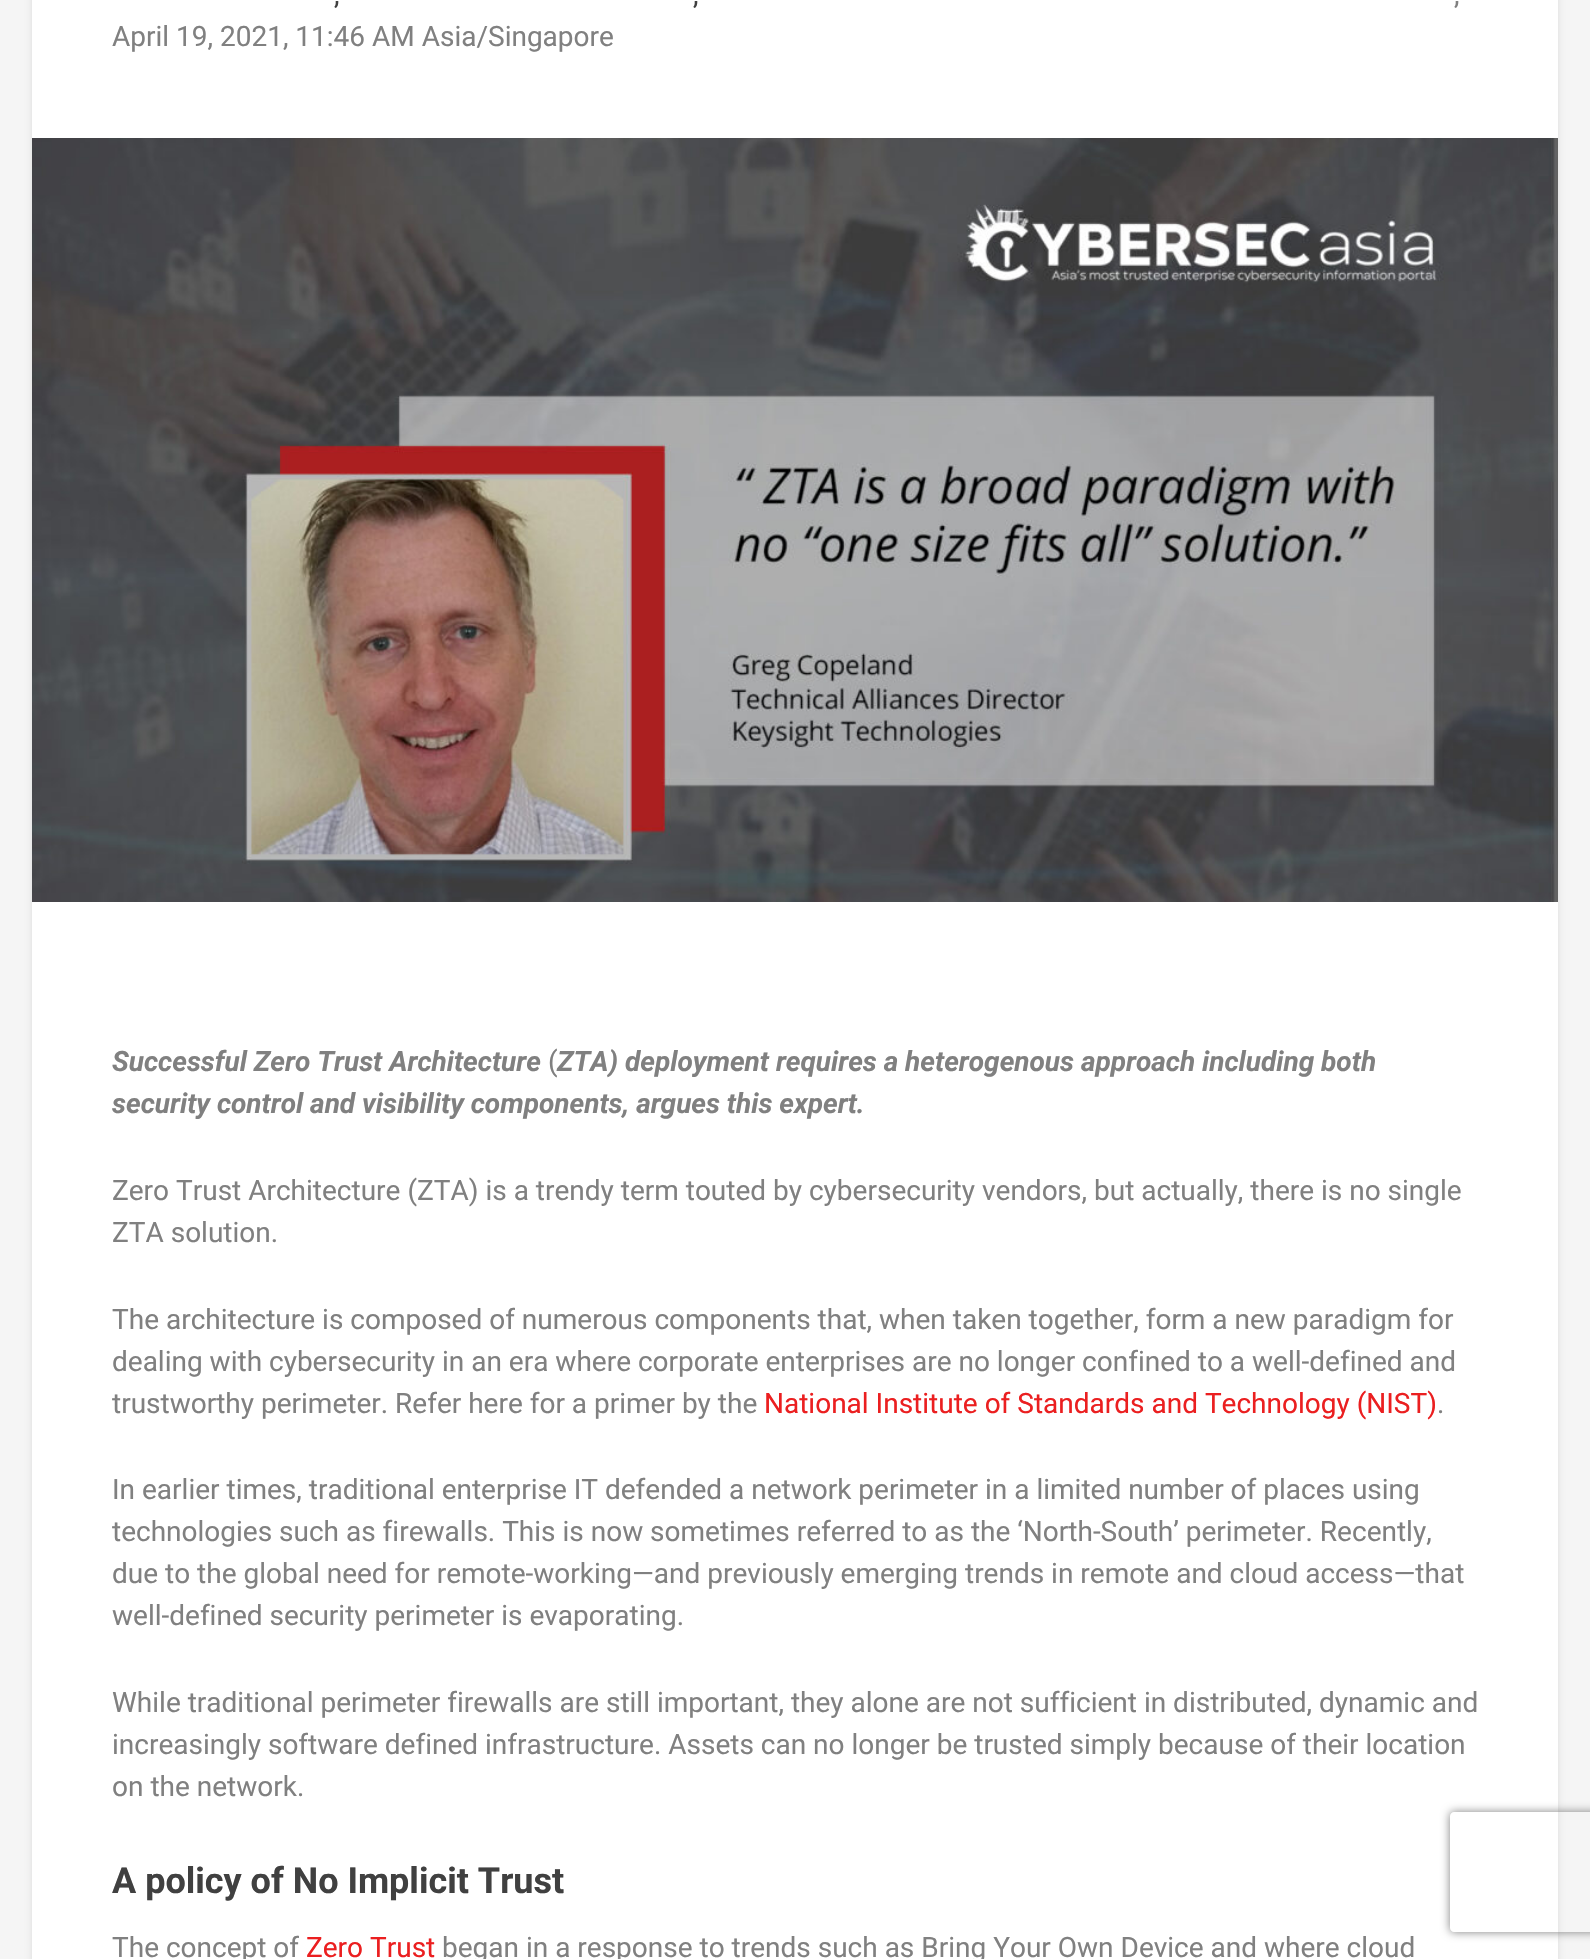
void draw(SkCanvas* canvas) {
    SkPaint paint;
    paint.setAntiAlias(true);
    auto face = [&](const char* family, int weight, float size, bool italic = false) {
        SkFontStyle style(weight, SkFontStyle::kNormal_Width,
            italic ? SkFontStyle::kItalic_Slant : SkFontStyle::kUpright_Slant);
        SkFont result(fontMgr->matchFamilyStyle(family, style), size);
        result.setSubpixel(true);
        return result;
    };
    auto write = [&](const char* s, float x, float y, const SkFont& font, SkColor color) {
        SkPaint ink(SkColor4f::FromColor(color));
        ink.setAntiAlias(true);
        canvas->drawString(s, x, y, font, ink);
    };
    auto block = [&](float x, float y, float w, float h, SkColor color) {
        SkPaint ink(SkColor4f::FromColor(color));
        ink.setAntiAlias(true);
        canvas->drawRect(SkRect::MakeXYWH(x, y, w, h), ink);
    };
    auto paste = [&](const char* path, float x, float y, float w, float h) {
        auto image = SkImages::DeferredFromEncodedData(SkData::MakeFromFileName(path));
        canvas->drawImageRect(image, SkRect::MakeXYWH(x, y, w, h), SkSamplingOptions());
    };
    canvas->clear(SkColorSetRGB(245, 245, 245));
    paint.setColor(SkColorSetARGB(26, 0, 0, 0));
    paint.setMaskFilter(SkMaskFilter::MakeBlur(kNormal_SkBlurStyle, 3));
    canvas->drawRoundRect(SkRect::MakeXYWH(32, -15, 1526, 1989), 6, 6, paint);
    paint.setMaskFilter(nullptr);
    block(32, 0, 1526, 1959, SK_ColorWHITE);
    auto kFont1 = face("Roboto", 400, 28);
    write(",", 334, 4, kFont1, SkColorSetRGB(64, 64, 64));
    write(",", 693, 4, kFont1, SkColorSetRGB(64, 64, 64));
    write(",", 1454, 4, kFont1, SkColorSetRGB(128, 128, 128));
    write("April 19, 2021, 11:46 AM Asia/Singapore", 112, 46, kFont1, SkColorSetRGB(128, 128, 128));
    paste("pic1.png", 32, 138, 1526, 764);
    auto kFont2 = face("Roboto", 700, 28, true);
    write("Successful Zero Trust Architecture", 112, 1071, kFont2, SkColorSetRGB(128, 128, 128));
    write("(", 548, 1071, kFont1, SkColorSetRGB(128, 128, 128));
    write("ZTA) deployment requires a heterogenous approach including both", 557, 1071, kFont2, SkColorSetRGB(128, 128, 128));
    write("security control and visibility components, argues this expert.", 112, 1113, kFont2, SkColorSetRGB(128, 128, 128));
    write("Zero Trust Architecture (ZTA) is a trendy term touted by cybersecurity vendors, but actually, there is no single", 112, 1200, kFont1, SkColorSetRGB(128, 128, 128));
    write("ZTA solution.", 112, 1242, kFont1, SkColorSetRGB(128, 128, 128));
    write("The architecture is composed of numerous components that, when taken together, form a new paradigm for", 112, 1329, kFont1, SkColorSetRGB(128, 128, 128));
    write("dealing with cybersecurity in an era where corporate enterprises are no longer confined to a well-defined and", 112, 1371, kFont1, SkColorSetRGB(128, 128, 128));
    write("trustworthy perimeter. Refer here for a primer by the", 112, 1413, kFont1, SkColorSetRGB(128, 128, 128));
    write("National Institute of Standards and Technology (NIST)", 764, 1413, kFont1, SkColorSetRGB(235, 31, 32));
    write(".", 1437, 1413, kFont1, SkColorSetRGB(128, 128, 128));
    write("In earlier times, traditional enterprise IT defended a network perimeter in a limited number of places using", 112, 1499, kFont1, SkColorSetRGB(128, 128, 128));
    write("technologies such as firewalls. This is now sometimes referred to as the ‘North-South’ perimeter. Recently,", 112, 1541, kFont1, SkColorSetRGB(128, 128, 128));
    write("due to the global need for remote-working—and previously emerging trends in remote and cloud access—that", 112, 1583, kFont1, SkColorSetRGB(128, 128, 128));
    write("well-defined security perimeter is evaporating.", 112, 1625, kFont1, SkColorSetRGB(128, 128, 128));
    write("While traditional perimeter firewalls are still important, they alone are not sufficient in distributed, dynamic and", 112, 1712, kFont1, SkColorSetRGB(128, 128, 128));
    write("increasingly software defined infrastructure. Assets can no longer be trusted simply because of their location", 112, 1754, kFont1, SkColorSetRGB(128, 128, 128));
    write("on the network.", 112, 1796, kFont1, SkColorSetRGB(128, 128, 128));
    auto kFont3 = face("Roboto", 700, 36);
    write("A policy of No Implicit Trust", 112, 1893, kFont3, SkColorSetRGB(64, 64, 64));
    write("The concept of", 112, 1957, kFont1, SkColorSetRGB(128, 128, 128));
    write("Zero Trust", 306, 1957, kFont1, SkColorSetRGB(235, 31, 32));
    write("began in a response to trends such as Bring Your Own Device and where cloud", 442, 1957, kFont1, SkColorSetRGB(128, 128, 128));
    canvas->save();
    canvas->clipPath(SkPathBuilder(SkPathFillType::kEvenOdd).moveTo(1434, 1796).lineTo(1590, 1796).lineTo(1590, 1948).lineTo(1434, 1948).close().moveTo(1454, 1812).lineTo(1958, 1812).cubicTo(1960, 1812, 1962, 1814, 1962, 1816).lineTo(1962, 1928).cubicTo(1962, 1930, 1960, 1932, 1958, 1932).lineTo(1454, 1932).cubicTo(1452, 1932, 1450, 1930, 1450, 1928).lineTo(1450, 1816).cubicTo(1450, 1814, 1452, 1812, 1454, 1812).close().detach(), true);
    paint.setColor(SkColorSetRGB(128, 128, 128));
    paint.setMaskFilter(SkMaskFilter::MakeBlur(kNormal_SkBlurStyle, 5));
    canvas->drawRoundRect(SkRect::MakeXYWH(1450, 1812, 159, 120), 4, 4, paint);
    paint.setMaskFilter(nullptr);
    canvas->restore();
}
